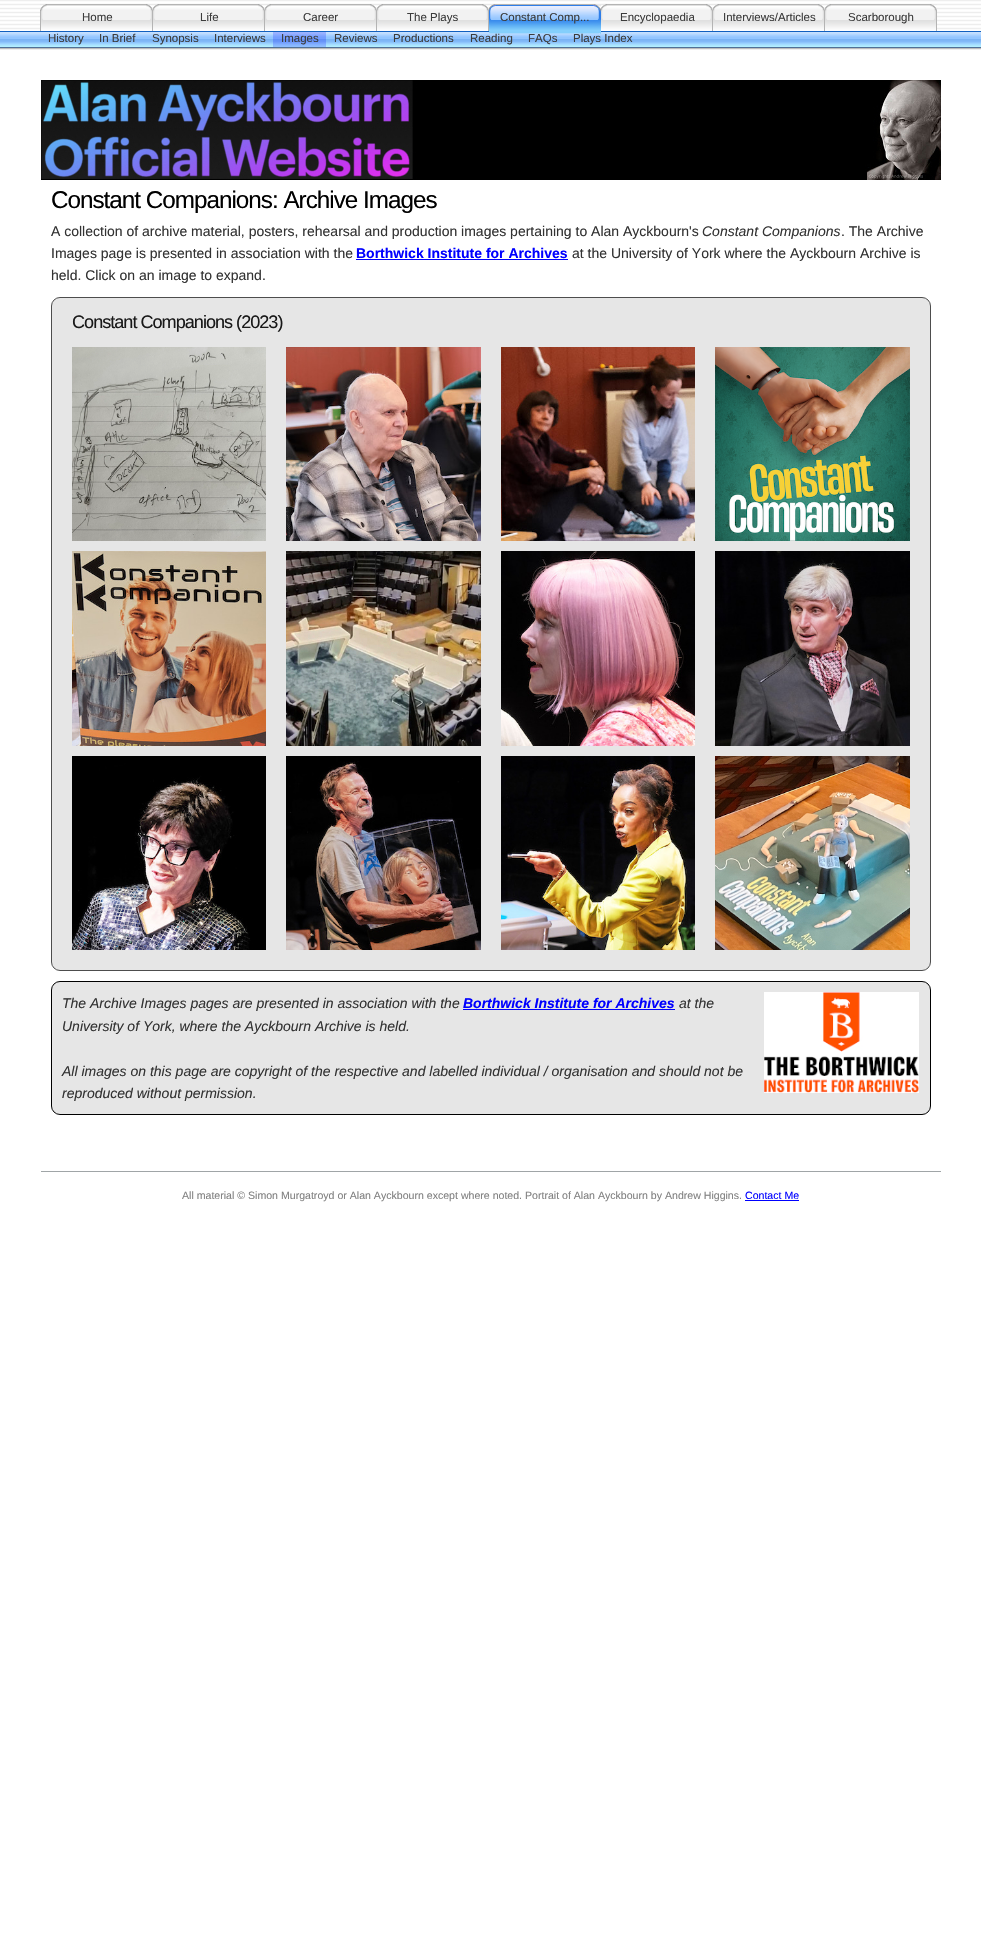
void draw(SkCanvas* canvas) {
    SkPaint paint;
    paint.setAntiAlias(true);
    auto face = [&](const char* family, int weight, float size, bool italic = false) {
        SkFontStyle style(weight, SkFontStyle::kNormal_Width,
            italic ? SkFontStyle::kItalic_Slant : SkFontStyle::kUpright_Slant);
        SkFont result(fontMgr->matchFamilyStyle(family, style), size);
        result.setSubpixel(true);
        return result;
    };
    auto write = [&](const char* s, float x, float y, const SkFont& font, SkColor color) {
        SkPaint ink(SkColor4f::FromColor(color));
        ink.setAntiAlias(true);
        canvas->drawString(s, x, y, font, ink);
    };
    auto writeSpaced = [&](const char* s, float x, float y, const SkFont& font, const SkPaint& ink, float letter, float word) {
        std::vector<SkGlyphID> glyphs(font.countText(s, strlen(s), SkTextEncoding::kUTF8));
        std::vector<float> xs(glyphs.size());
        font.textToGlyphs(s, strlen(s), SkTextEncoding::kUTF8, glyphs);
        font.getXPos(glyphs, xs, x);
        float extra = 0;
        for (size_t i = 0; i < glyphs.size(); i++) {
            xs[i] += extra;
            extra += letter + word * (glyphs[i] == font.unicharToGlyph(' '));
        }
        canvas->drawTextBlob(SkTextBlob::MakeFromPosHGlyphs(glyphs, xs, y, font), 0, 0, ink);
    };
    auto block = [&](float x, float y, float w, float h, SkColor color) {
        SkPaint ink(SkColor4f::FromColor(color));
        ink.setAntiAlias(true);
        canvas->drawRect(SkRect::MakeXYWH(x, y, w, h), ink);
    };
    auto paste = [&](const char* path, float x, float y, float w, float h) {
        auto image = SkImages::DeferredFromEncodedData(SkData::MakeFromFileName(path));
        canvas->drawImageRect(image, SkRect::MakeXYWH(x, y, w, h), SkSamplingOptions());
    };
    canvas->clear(SK_ColorWHITE);
    paste("pic1.png", 0, 0, 981, 48);
    paste("pic2.png", 40, 0, 1, 31);
    paste("pic3.png", 489, 4, 112, 30);
    auto kFont1 = face("Liberation Sans", 400, 11.5f);
    write("Constant Comp...", 500, 21, kFont1, SkColorSetRGB(60, 60, 60));
    write("History", 48, 42, kFont1, SkColorSetRGB(60, 60, 60));
    write("In Brief", 99, 42, kFont1, SkColorSetRGB(60, 60, 60));
    write("Synopsis", 152, 42, kFont1, SkColorSetRGB(60, 60, 60));
    write("Interviews", 214, 42, kFont1, SkColorSetRGB(60, 60, 60));
    paste("pic4.png", 273, 32, 53, 15);
    write("Images", 281, 42, kFont1, SkColorSetRGB(60, 60, 60));
    write("Reviews", 334, 42, kFont1, SkColorSetRGB(60, 60, 60));
    write("Productions", 393, 42, kFont1, SkColorSetRGB(60, 60, 60));
    write("Reading", 470, 42, kFont1, SkColorSetRGB(60, 60, 60));
    write("FAQs", 528, 42, kFont1, SkColorSetRGB(60, 60, 60));
    write("Plays Index", 573, 42, kFont1, SkColorSetRGB(60, 60, 60));
    paste("pic5.png", 41, 4, 112, 27);
    write("Home", 82, 21, kFont1, SkColorSetRGB(60, 60, 60));
    paste("pic5.png", 153, 4, 112, 27);
    write("Life", 200, 21, kFont1, SkColorSetRGB(60, 60, 60));
    paste("pic5.png", 265, 4, 112, 27);
    write("Career", 303, 21, kFont1, SkColorSetRGB(60, 60, 60));
    paste("pic5.png", 377, 4, 112, 27);
    write("The Plays", 407, 21, kFont1, SkColorSetRGB(60, 60, 60));
    paste("pic5.png", 601, 4, 112, 27);
    write("Encyclopaedia", 620, 21, kFont1, SkColorSetRGB(60, 60, 60));
    paste("pic5.png", 713, 4, 112, 27);
    write("Interviews/Articles", 723, 21, kFont1, SkColorSetRGB(60, 60, 60));
    paste("pic5.png", 825, 4, 112, 27);
    write("Scarborough", 848, 21, kFont1, SkColorSetRGB(60, 60, 60));
    paste("pic6.png", 0, 48, 981, 2);
    paste("pic7.png", 41, 80, 900, 100);
    auto kFont2 = face("Liberation Sans", 400, 24.25f);
    paint.setColor(SK_ColorBLACK);
    writeSpaced("Constant Companions: Archive Images", 51, 208, kFont2, paint, -1, 0);
    auto kFont3 = face("Liberation Sans", 400, 14);
    write("A collection of archive material, posters, rehearsal and production images pertaining to Alan Ayckbourn's", 51, 236, kFont3, SkColorSetRGB(51, 51, 51));
    auto kFont4 = face("Liberation Sans", 400, 14, true);
    write("Constant Companions", 702, 236, kFont4, SkColorSetRGB(51, 51, 51));
    write(". The Archive", 841, 236, kFont3, SkColorSetRGB(51, 51, 51));
    write("Images page is presented in association with the", 51, 258, kFont3, SkColorSetRGB(51, 51, 51));
    auto kFont5 = face("Liberation Sans", 700, 14);
    write("Borthwick Institute for Archives", 356, 258, kFont5, SkColorSetRGB(0, 0, 255));
    block(356, 259, 212, 1, SkColorSetRGB(0, 0, 255));
    write("at the University of York where the Ayckbourn Archive is", 572, 258, kFont3, SkColorSetRGB(51, 51, 51));
    write("held. Click on an image to expand.", 51, 280, kFont3, SkColorSetRGB(51, 51, 51));
    paint.setColor(SkColorSetRGB(230, 230, 230));
    canvas->drawRoundRect(SkRect::MakeXYWH(51.5f, 297.5f, 879, 673), 8.5f, 8.5f, paint);
    paint.setStyle(SkPaint::kStroke_Style);
    paint.setStrokeWidth(1);
    paint.setColor(SkColorSetRGB(77, 77, 77));
    canvas->drawRoundRect(SkRect::MakeXYWH(51.5f, 297.5f, 879, 673), 8.5f, 8.5f, paint);
    auto kFont6 = face("Liberation Sans", 400, 18.1f);
    paint.setStyle(SkPaint::kFill_Style);
    paint.setColor(SkColorSetRGB(25, 25, 25));
    writeSpaced("Constant Companions (2023)", 72, 328, kFont6, paint, -1, 0);
    paste("pic8.png", 72, 347, 194, 194);
    paste("pic9.png", 286, 347, 195, 194);
    paste("pic10.png", 501, 347, 194, 194);
    paste("pic11.png", 715, 347, 195, 194);
    paste("pic12.png", 72, 551, 194, 195);
    paste("pic13.png", 286, 551, 195, 195);
    paste("pic14.png", 501, 551, 194, 195);
    paste("pic15.png", 715, 551, 195, 195);
    paste("pic16.png", 72, 756, 194, 194);
    paste("pic17.png", 286, 756, 195, 194);
    paste("pic18.png", 501, 756, 194, 194);
    paste("pic19.png", 715, 756, 195, 194);
    paint.setColor(SkColorSetRGB(230, 230, 230));
    canvas->drawRoundRect(SkRect::MakeXYWH(51.5f, 981.5f, 879, 133), 8.5f, 8.5f, paint);
    paint.setStyle(SkPaint::kStroke_Style);
    paint.setColor(SK_ColorBLACK);
    canvas->drawRoundRect(SkRect::MakeXYWH(51.5f, 981.5f, 879, 133), 8.5f, 8.5f, paint);
    write("The Archive Images pages are presented in association with the", 62, 1008, kFont4, SkColorSetRGB(51, 51, 51));
    auto kFont7 = face("Liberation Sans", 700, 14, true);
    write("Borthwick Institute for Archives", 463, 1008, kFont7, SkColorSetRGB(0, 0, 255));
    block(463, 1009, 212, 1, SkColorSetRGB(0, 0, 255));
    write("at the", 679, 1008, kFont4, SkColorSetRGB(51, 51, 51));
    write("University of York, where the Ayckbourn Archive is held.", 62, 1031, kFont4, SkColorSetRGB(51, 51, 51));
    write("All images on this page are copyright of the respective and labelled individual / organisation and should not be", 62, 1076, kFont4, SkColorSetRGB(51, 51, 51));
    write("reproduced without permission.", 62, 1098, kFont4, SkColorSetRGB(51, 51, 51));
    paste("pic20.png", 764, 992, 155, 101);
    block(41, 1171, 900, 1, SkColorSetRGB(160, 165, 167));
    auto kFont8 = face("Liberation Sans", 400, 10.58f);
    write("All material © Simon Murgatroyd or Alan Ayckbourn except where noted. Portrait of Alan Ayckbourn by Andrew Higgins.", 182, 1199, kFont8, SkColorSetRGB(128, 128, 128));
    write("Contact Me", 745, 1199, kFont8, SkColorSetRGB(0, 0, 255));
    block(745, 1200, 54, 1, SkColorSetRGB(0, 0, 255));
}
